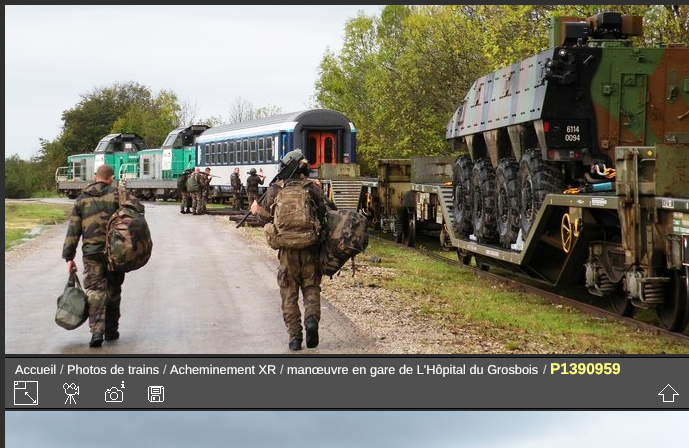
void draw(SkCanvas* canvas) {
    SkPaint paint;
    paint.setAntiAlias(true);
    auto face = [&](const char* family, int weight, float size, bool italic = false) {
        SkFontStyle style(weight, SkFontStyle::kNormal_Width,
            italic ? SkFontStyle::kItalic_Slant : SkFontStyle::kUpright_Slant);
        SkFont result(fontMgr->matchFamilyStyle(family, style), size);
        result.setSubpixel(true);
        return result;
    };
    auto write = [&](const char* s, float x, float y, const SkFont& font, SkColor color) {
        SkPaint ink(SkColor4f::FromColor(color));
        ink.setAntiAlias(true);
        canvas->drawString(s, x, y, font, ink);
    };
    auto block = [&](float x, float y, float w, float h, SkColor color) {
        SkPaint ink(SkColor4f::FromColor(color));
        ink.setAntiAlias(true);
        canvas->drawRect(SkRect::MakeXYWH(x, y, w, h), ink);
    };
    auto paste = [&](const char* path, float x, float y, float w, float h) {
        auto image = SkImages::DeferredFromEncodedData(SkData::MakeFromFileName(path));
        canvas->drawImageRect(image, SkRect::MakeXYWH(x, y, w, h), SkSamplingOptions());
    };
    canvas->clear(SkColorSetRGB(47, 47, 47));
    paste("pic1.png", 5, 5, 684, 349);
    block(5, 358, 684, 50, SkColorSetRGB(80, 80, 80));
    block(5, 408, 684, 1, SK_ColorBLACK);
    paste("pic2.png", 14, 381, 24, 24);
    paste("pic3.png", 63, 383, 16, 21);
    paste("pic4.png", 105, 381, 20, 21);
    paste("pic5.png", 148, 386, 16, 16);
    paste("pic6.png", 658, 384, 21, 18);
    block(5, 357, 684, 1, SK_ColorBLACK);
    auto kFont1 = face("Liberation Sans", 400, 12.75f);
    write("Accueil", 15, 374, kFont1, SK_ColorWHITE);
    write("/", 60, 374, kFont1, SkColorSetRGB(208, 208, 208));
    write("Photos de trains", 67, 374, kFont1, SK_ColorWHITE);
    write("/", 163, 374, kFont1, SkColorSetRGB(208, 208, 208));
    write("Acheminement XR", 170, 374, kFont1, SK_ColorWHITE);
    write("/", 280, 374, kFont1, SkColorSetRGB(208, 208, 208));
    write("manœuvre en gare de L'Hôpital du Grosbois", 287, 374, kFont1, SK_ColorWHITE);
    write("/", 543, 374, kFont1, SkColorSetRGB(208, 208, 208));
    auto kFont2 = face("Liberation Sans", 700, 15.5f);
    write("P1390959", 550, 374, kFont2, SkColorSetRGB(255, 255, 128));
    paste("pic7.png", 5, 411, 684, 37);
}
